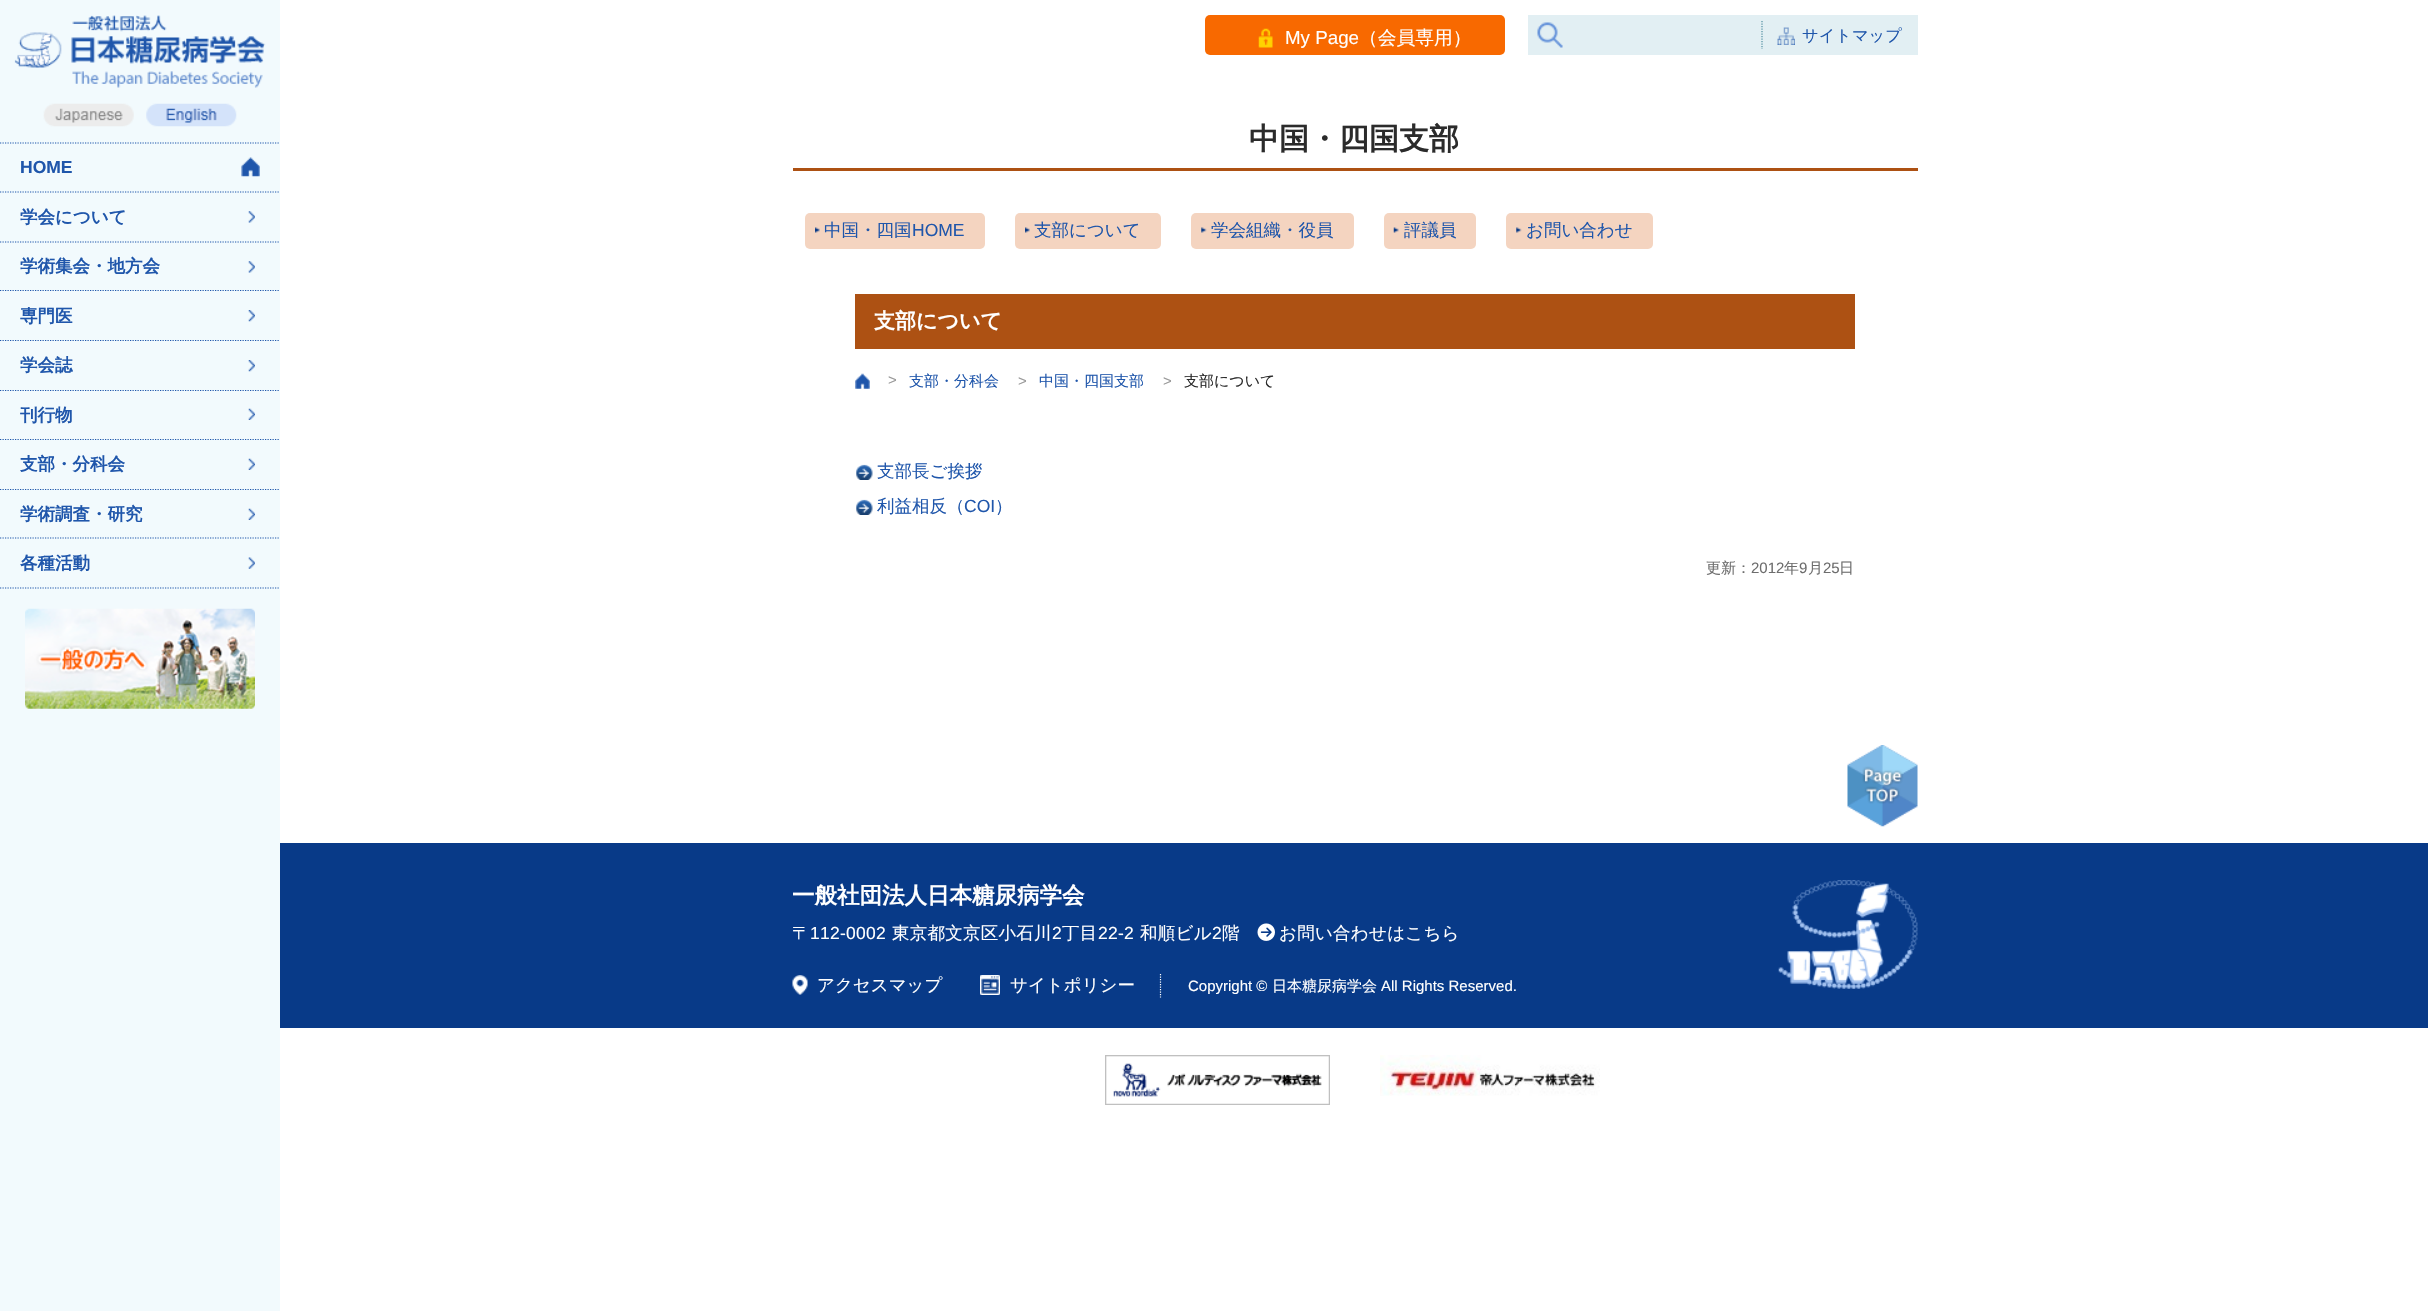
void draw(SkCanvas* canvas) {
    SkPaint paint;
    paint.setAntiAlias(true);
    auto face = [&](const char* family, int weight, float size, bool italic = false) {
        SkFontStyle style(weight, SkFontStyle::kNormal_Width,
            italic ? SkFontStyle::kItalic_Slant : SkFontStyle::kUpright_Slant);
        SkFont result(fontMgr->matchFamilyStyle(family, style), size);
        result.setSubpixel(true);
        return result;
    };
    auto write = [&](const char* s, float x, float y, const SkFont& font, SkColor color) {
        SkPaint ink(SkColor4f::FromColor(color));
        ink.setAntiAlias(true);
        canvas->drawString(s, x, y, font, ink);
    };
    auto writeSpaced = [&](const char* s, float x, float y, const SkFont& font, const SkPaint& ink, float letter, float word) {
        std::vector<SkGlyphID> glyphs(font.countText(s, strlen(s), SkTextEncoding::kUTF8));
        std::vector<float> xs(glyphs.size());
        font.textToGlyphs(s, strlen(s), SkTextEncoding::kUTF8, glyphs);
        font.getXPos(glyphs, xs, x);
        float extra = 0;
        for (size_t i = 0; i < glyphs.size(); i++) {
            xs[i] += extra;
            extra += letter + word * (glyphs[i] == font.unicharToGlyph(' '));
        }
        canvas->drawTextBlob(SkTextBlob::MakeFromPosHGlyphs(glyphs, xs, y, font), 0, 0, ink);
    };
    auto block = [&](float x, float y, float w, float h, SkColor color) {
        SkPaint ink(SkColor4f::FromColor(color));
        ink.setAntiAlias(true);
        canvas->drawRect(SkRect::MakeXYWH(x, y, w, h), ink);
    };
    auto card = [&](float x, float y, float w, float h, float radius, SkColor color) {
        SkPaint ink(SkColor4f::FromColor(color));
        ink.setAntiAlias(true);
        canvas->drawRoundRect(SkRect::MakeXYWH(x, y, w, h), radius, radius, ink);
    };
    auto paste = [&](const char* path, float x, float y, float w, float h) {
        auto image = SkImages::DeferredFromEncodedData(SkData::MakeFromFileName(path));
        canvas->drawImageRect(image, SkRect::MakeXYWH(x, y, w, h), SkSamplingOptions());
    };
    canvas->clear(SK_ColorWHITE);
    block(0, 0, 280, 1311, SkColorSetRGB(242, 250, 253));
    paste("pic1.png", 14, 15, 252, 73);
    paste("pic2.png", 43, 103, 91, 24);
    paste("pic3.png", 146, 103, 91, 24);
    paint.setStyle(SkPaint::kStroke_Style);
    paint.setStrokeWidth(1.2f);
    paint.setColor(SkColorSetRGB(31, 86, 171));
    paint.setPathEffect(SkDashPathEffect::Make({{1.25f, 1.25f}}, 0));
    canvas->drawPath(SkPathBuilder().moveTo(0, 143).lineTo(280, 143).detach(), paint);
    paint.setPathEffect(nullptr);
    paste("pic4.png", 241, 157, 19, 20);
    paint.setPathEffect(SkDashPathEffect::Make({{1.25f, 1.25f}}, 0));
    canvas->drawPath(SkPathBuilder().moveTo(0, 192).lineTo(280, 192).detach(), paint);
    paint.setPathEffect(nullptr);
    auto kFont1 = face("Liberation Sans", 700, 17.5f);
    write("HOME", 20, 173, kFont1, SkColorSetRGB(31, 86, 171));
    paste("pic5.png", 248, 211, 7, 12);
    paint.setPathEffect(SkDashPathEffect::Make({{1.25f, 1.25f}}, 0));
    canvas->drawPath(SkPathBuilder().moveTo(0, 242).lineTo(280, 242).detach(), paint);
    paint.setPathEffect(nullptr);
    auto kFont2 = face("WenQuanYi Zen Hei", 700, 17.5f);
    write("学会について", 20, 223, kFont2, SkColorSetRGB(31, 86, 171));
    paste("pic6.png", 248, 261, 7, 12);
    paint.setPathEffect(SkDashPathEffect::Make({{1.25f, 1.25f}}, 0));
    canvas->drawPath(SkPathBuilder().moveTo(0, 290.5f).lineTo(280, 290.5f).detach(), paint);
    paint.setPathEffect(nullptr);
    write("学術集会・地方会", 20, 272, kFont2, SkColorSetRGB(31, 86, 171));
    block(0, 291, 279, 1, SkColorSetRGB(242, 250, 253));
    paste("pic7.png", 248, 310, 7, 12);
    paint.setPathEffect(SkDashPathEffect::Make({{1.25f, 1.25f}}, 0));
    canvas->drawPath(SkPathBuilder().moveTo(0, 340.5f).lineTo(280, 340.5f).detach(), paint);
    paint.setPathEffect(nullptr);
    write("専門医", 20, 322, kFont2, SkColorSetRGB(31, 86, 171));
    block(0, 341, 279, 1, SkColorSetRGB(242, 250, 253));
    paste("pic7.png", 248, 360, 7, 12);
    paint.setPathEffect(SkDashPathEffect::Make({{1.25f, 1.25f}}, 0));
    canvas->drawPath(SkPathBuilder().moveTo(0, 390.5f).lineTo(280, 390.5f).detach(), paint);
    paint.setPathEffect(nullptr);
    write("学会誌", 20, 371, kFont2, SkColorSetRGB(31, 86, 171));
    block(0, 391, 279, 1, SkColorSetRGB(242, 250, 253));
    paste("pic8.png", 248, 408, 7, 12);
    paint.setPathEffect(SkDashPathEffect::Make({{1.25f, 1.25f}}, 0));
    canvas->drawPath(SkPathBuilder().moveTo(0, 439.5f).lineTo(280, 439.5f).detach(), paint);
    paint.setPathEffect(nullptr);
    write("刊行物", 20, 421, kFont2, SkColorSetRGB(31, 86, 171));
    block(0, 440, 279, 1, SkColorSetRGB(242, 250, 253));
    paste("pic8.png", 248, 458, 7, 12);
    paint.setPathEffect(SkDashPathEffect::Make({{1.25f, 1.25f}}, 0));
    canvas->drawPath(SkPathBuilder().moveTo(0, 489.5f).lineTo(280, 489.5f).detach(), paint);
    paint.setPathEffect(nullptr);
    write("支部・分科会", 20, 470, kFont2, SkColorSetRGB(31, 86, 171));
    block(0, 490, 279, 1, SkColorSetRGB(242, 250, 253));
    paste("pic8.png", 248, 508, 7, 12);
    paint.setPathEffect(SkDashPathEffect::Make({{1.25f, 1.25f}}, 0));
    canvas->drawPath(SkPathBuilder().moveTo(0, 538).lineTo(280, 538).detach(), paint);
    paint.setPathEffect(nullptr);
    write("学術調査・研究", 20, 520, kFont2, SkColorSetRGB(31, 86, 171));
    paste("pic9.png", 248, 557, 7, 12);
    paint.setPathEffect(SkDashPathEffect::Make({{1.25f, 1.25f}}, 0));
    canvas->drawPath(SkPathBuilder().moveTo(0, 588).lineTo(280, 588).detach(), paint);
    paint.setPathEffect(nullptr);
    write("各種活動", 20, 569, kFont2, SkColorSetRGB(31, 86, 171));
    paste("pic10.png", 25, 608, 230, 101);
    card(1205, 15, 300, 40, 5, SkColorSetRGB(248, 105, 0));
    paste("pic11.png", 1258, 28, 15, 20);
    auto kFont3 = face("Liberation Sans", 400, 18.75f);
    write("My Page", 1285, 44, kFont3, SK_ColorWHITE);
    auto kFont4 = face("WenQuanYi Zen Hei", 500, 18.75f);
    write("（会員専用）", 1359, 44, kFont4, SK_ColorWHITE);
    block(1528, 15, 390, 40, SkColorSetRGB(226, 239, 243));
    paste("pic12.png", 1537, 22, 26, 26);
    paint.setColor(SkColorSetRGB(79, 141, 160));
    paint.setPathEffect(SkDashPathEffect::Make({{1.25f, 1.25f}}, 0));
    canvas->drawPath(SkPathBuilder().moveTo(1762, 21).lineTo(1762, 49).detach(), paint);
    paint.setPathEffect(nullptr);
    paste("pic13.png", 1777, 27, 18, 18);
    auto kFont5 = face("WenQuanYi Zen Hei", 500, 16.25f);
    write("サイトマップ", 1802, 41, kFont5, SkColorSetRGB(31, 86, 171));
    block(793, 168, 1125, 3, SkColorSetRGB(173, 81, 19));
    auto kFont6 = face("WenQuanYi Zen Hei", 700, 30);
    write("中国・四国支部", 1249, 149, kFont6, SkColorSetRGB(43, 43, 43));
    card(805, 213, 180, 36, 5, SkColorSetRGB(244, 212, 192));
    paste("pic14.png", 815, 227, 5, 6);
    auto kFont7 = face("WenQuanYi Zen Hei", 500, 17.5f);
    write("中国・四国", 824, 236, kFont7, SkColorSetRGB(31, 86, 171));
    auto kFont8 = face("Liberation Sans", 400, 17.5f);
    write("HOME", 912, 236, kFont8, SkColorSetRGB(31, 86, 171));
    card(1015, 213, 146, 36, 5, SkColorSetRGB(244, 212, 192));
    paste("pic14.png", 1025, 227, 5, 6);
    write("支部について", 1034, 236, kFont7, SkColorSetRGB(31, 86, 171));
    card(1191, 213, 163, 36, 5, SkColorSetRGB(244, 212, 192));
    paste("pic15.png", 1201, 227, 6, 6);
    write("学会組織・役員", 1211, 236, kFont7, SkColorSetRGB(31, 86, 171));
    card(1384, 213, 92, 36, 5, SkColorSetRGB(244, 212, 192));
    paste("pic16.png", 1393, 227, 6, 6);
    write("評議員", 1404, 236, kFont7, SkColorSetRGB(31, 86, 171));
    card(1506, 213, 147, 36, 5, SkColorSetRGB(244, 212, 192));
    paste("pic15.png", 1516, 227, 6, 6);
    write("お問い合わせ", 1526, 236, kFont7, SkColorSetRGB(31, 86, 171));
    block(855, 294, 1000, 55, SkColorSetRGB(173, 81, 19));
    auto kFont9 = face("WenQuanYi Zen Hei", 700, 21);
    write("支部について", 874, 328, kFont9, SK_ColorWHITE);
    paste("pic17.png", 855, 373, 15, 16);
    auto kFont10 = face("Liberation Sans", 400, 15);
    write(">", 888, 385, kFont10, SkColorSetRGB(153, 153, 153));
    auto kFont11 = face("WenQuanYi Zen Hei", 500, 15);
    write("支部・分科会", 909, 386, kFont11, SkColorSetRGB(31, 86, 171));
    write(">", 1018, 386, kFont10, SkColorSetRGB(153, 153, 153));
    write("中国・四国支部", 1039, 386, kFont11, SkColorSetRGB(31, 86, 171));
    write(">", 1163, 386, kFont10, SkColorSetRGB(153, 153, 153));
    write("支部について", 1184, 386, kFont11, SkColorSetRGB(43, 43, 43));
    paste("pic18.png", 856, 464, 17, 16);
    write("支部長ご挨拶", 877, 477, kFont7, SkColorSetRGB(31, 86, 171));
    paste("pic18.png", 856, 499, 17, 16);
    write("利益相反（", 877, 512, kFont7, SkColorSetRGB(31, 86, 171));
    write("COI", 964, 512, kFont8, SkColorSetRGB(31, 86, 171));
    write("）", 995, 512, kFont7, SkColorSetRGB(31, 86, 171));
    write("更新：", 1706, 573, kFont11, SkColorSetRGB(109, 109, 109));
    write("2012", 1751, 573, kFont10, SkColorSetRGB(109, 109, 109));
    write("年", 1784, 573, kFont11, SkColorSetRGB(109, 109, 109));
    write("9", 1799, 573, kFont10, SkColorSetRGB(109, 109, 109));
    write("月", 1808, 573, kFont11, SkColorSetRGB(109, 109, 109));
    write("25", 1823, 573, kFont10, SkColorSetRGB(109, 109, 109));
    write("日", 1839, 573, kFont11, SkColorSetRGB(109, 109, 109));
    block(280, 843, 2148, 185, SkColorSetRGB(8, 58, 136));
    paste("pic19.png", 1847, 745, 71, 82);
    auto kFont12 = face("WenQuanYi Zen Hei", 700, 22.5f);
    write("一般社団法人日本糖尿病学会", 792, 903, kFont12, SK_ColorWHITE);
    paint.setStyle(SkPaint::kFill_Style);
    paint.setColor(SK_ColorWHITE);
    writeSpaced("〒", 792, 939, kFont7, paint, 0.25f, 0);
    writeSpaced("112-0002", 810, 939, kFont8, paint, 0.25f, 0);
    writeSpaced("東京都文京区小石川", 892, 939, kFont7, paint, 0.25f, 0);
    writeSpaced("2", 1052, 939, kFont8, paint, 0.25f, 0);
    writeSpaced("丁目", 1062, 939, kFont7, paint, 0.25f, 0);
    writeSpaced("22-2", 1098, 939, kFont8, paint, 0.25f, 0);
    writeSpaced("和順ビル", 1140, 939, kFont7, paint, 0.25f, 0);
    writeSpaced("2", 1212, 939, kFont8, paint, 0.25f, 0);
    writeSpaced("階", 1222, 939, kFont7, paint, 0.25f, 0);
    paste("pic20.png", 1257, 923, 18, 18);
    writeSpaced("お問い合わせはこちら", 1279, 939, kFont7, paint, 0.25f, 0);
    paste("pic21.png", 792, 975, 16, 20);
    write("アクセスマップ", 817, 991, kFont7, SK_ColorWHITE);
    paste("pic22.png", 980, 975, 20, 20);
    write("サイトポリシー", 1010, 991, kFont7, SK_ColorWHITE);
    paint.setStyle(SkPaint::kStroke_Style);
    paint.setPathEffect(SkDashPathEffect::Make({{1.25f, 1.25f}}, 0));
    canvas->drawPath(SkPathBuilder().moveTo(1160.5f, 974).lineTo(1160.5f, 997.5f).detach(), paint);
    paint.setPathEffect(nullptr);
    write("Copyright ©", 1188, 991, kFont10, SK_ColorWHITE);
    write("日本糖尿病学会", 1272, 991, kFont11, SK_ColorWHITE);
    write("All Rights Reserved.", 1381, 991, kFont10, SK_ColorWHITE);
    paste("pic23.png", 1778, 880, 140, 109);
    paste("pic24.png", 1105, 1055, 225, 50);
    paste("pic25.png", 1380, 1055, 220, 41);
}
